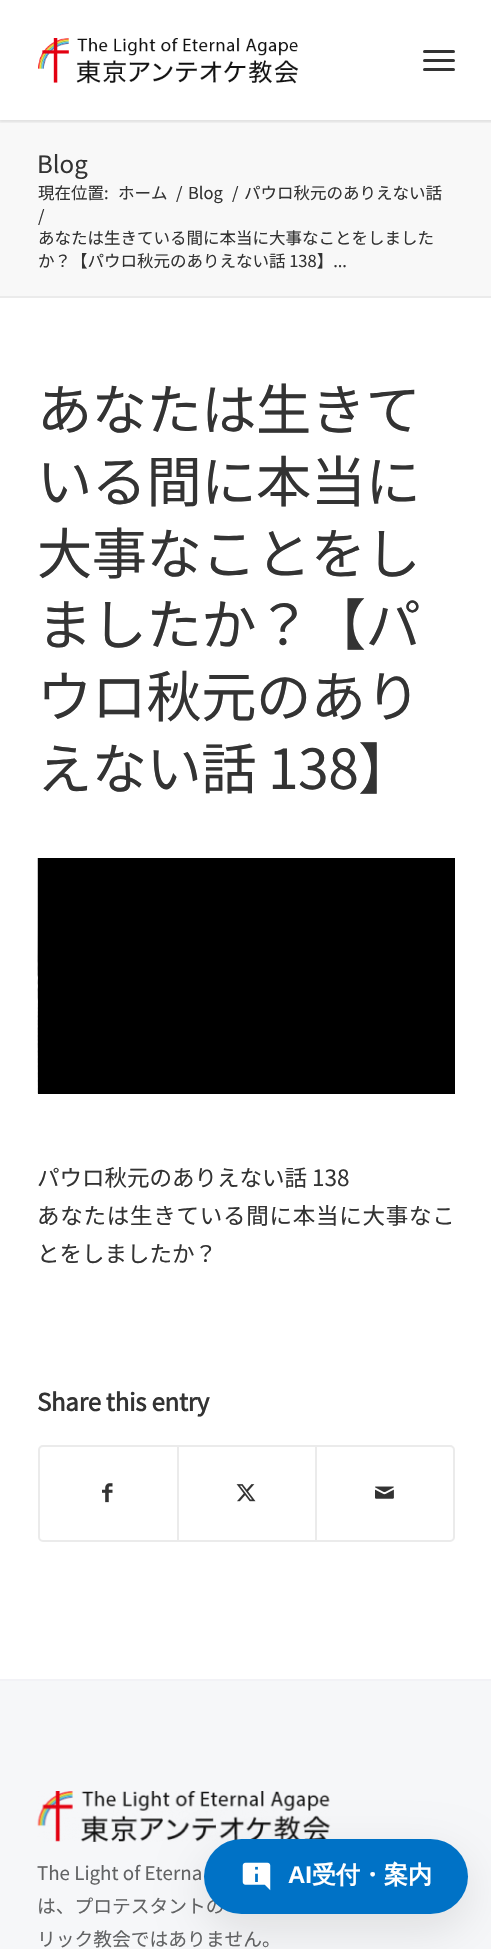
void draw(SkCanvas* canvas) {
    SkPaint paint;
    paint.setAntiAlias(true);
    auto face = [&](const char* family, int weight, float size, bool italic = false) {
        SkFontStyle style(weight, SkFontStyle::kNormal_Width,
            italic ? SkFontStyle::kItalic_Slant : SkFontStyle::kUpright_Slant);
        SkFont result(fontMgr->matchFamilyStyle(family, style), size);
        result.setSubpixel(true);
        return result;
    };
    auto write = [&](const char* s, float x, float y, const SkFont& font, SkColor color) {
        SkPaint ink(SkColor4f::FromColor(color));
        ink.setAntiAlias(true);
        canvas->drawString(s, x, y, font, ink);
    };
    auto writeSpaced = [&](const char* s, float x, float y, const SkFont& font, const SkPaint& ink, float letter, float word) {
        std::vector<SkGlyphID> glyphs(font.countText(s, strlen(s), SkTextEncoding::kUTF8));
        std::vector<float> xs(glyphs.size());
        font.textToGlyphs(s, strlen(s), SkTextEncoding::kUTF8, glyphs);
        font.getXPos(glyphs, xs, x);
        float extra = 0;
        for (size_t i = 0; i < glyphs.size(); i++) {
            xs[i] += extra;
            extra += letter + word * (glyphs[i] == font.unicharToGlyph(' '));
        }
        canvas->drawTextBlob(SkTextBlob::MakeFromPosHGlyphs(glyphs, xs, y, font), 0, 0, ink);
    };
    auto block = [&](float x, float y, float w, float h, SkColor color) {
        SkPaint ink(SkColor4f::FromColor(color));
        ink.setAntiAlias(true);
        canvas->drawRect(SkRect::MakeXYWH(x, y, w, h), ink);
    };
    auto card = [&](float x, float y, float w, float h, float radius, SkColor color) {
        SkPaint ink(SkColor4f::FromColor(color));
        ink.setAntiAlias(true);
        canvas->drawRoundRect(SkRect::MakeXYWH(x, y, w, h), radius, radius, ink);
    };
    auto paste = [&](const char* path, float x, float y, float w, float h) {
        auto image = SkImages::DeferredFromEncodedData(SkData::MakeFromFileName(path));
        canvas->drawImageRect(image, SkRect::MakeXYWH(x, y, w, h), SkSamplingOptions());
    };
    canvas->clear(SK_ColorWHITE);
    block(0, 120, 491, 176, SkColorSetRGB(248, 248, 248));
    canvas->save();
    canvas->clipRect(SkRect::MakeXYWH(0, 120, 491, 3));
    paint.setColor(SkColorSetARGB(26, 0, 0, 0));
    paint.setMaskFilter(SkMaskFilter::MakeBlur(kNormal_SkBlurStyle, 1.5f));
    canvas->drawRect(SkRect::MakeXYWH(-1, -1, 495, 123), paint);
    paint.setMaskFilter(nullptr);
    canvas->restore();
    paste("pic1.png", 38, 38, 261, 46);
    card(423, 59, 32, 3, 1.5f, SkColorSetRGB(51, 51, 51));
    card(423, 50, 32, 3, 1.5f, SkColorSetRGB(51, 51, 51));
    card(423, 68, 32, 3, 1.5f, SkColorSetRGB(51, 51, 51));
    auto kFont1 = face("Noto Sans JP", 400, 24);
    write("Blog", 37, 173, kFont1, SkColorSetRGB(51, 51, 51));
    auto kFont2 = face("Noto Sans JP", 400, 16.5f);
    write("現在位置:", 38, 199, kFont2, SkColorSetRGB(51, 51, 51));
    write("ホーム", 118, 199, kFont2, SkColorSetRGB(51, 51, 51));
    write("/", 176, 199, kFont2, SkColorSetRGB(51, 51, 51));
    write("Blog", 188, 199, kFont2, SkColorSetRGB(51, 51, 51));
    write("/", 232, 199, kFont2, SkColorSetRGB(51, 51, 51));
    write("パウロ秋元のありえない話", 244, 199, kFont2, SkColorSetRGB(51, 51, 51));
    write("/", 38, 222, kFont2, SkColorSetRGB(51, 51, 51));
    write("あなたは生きている間に本当に大事なことをしました", 38, 244, kFont2, SkColorSetRGB(51, 51, 51));
    write("か？【パウロ秋元のありえない話 138】...", 38, 267, kFont2, SkColorSetRGB(51, 51, 51));
    block(0, 296, 491, 2, SkColorSetRGB(235, 235, 235));
    auto kFont3 = face("Noto Sans JP", 400, 55.25f);
    paint.setColor(SkColorSetRGB(51, 51, 51));
    writeSpaced("あなたは生きて", 37, 430, kFont3, paint, -0.5f, 0);
    writeSpaced("いる間に本当に", 37, 502, kFont3, paint, -0.5f, 0);
    writeSpaced("大事なことをし", 37, 574, kFont3, paint, -0.5f, 0);
    writeSpaced("ましたか？【パ", 37, 645, kFont3, paint, -0.5f, 0);
    writeSpaced("ウロ秋元のあり", 37, 717, kFont3, paint, -0.5f, 0);
    writeSpaced("えない話 138】", 37, 789, kFont3, paint, -0.5f, 0);
    paste("pic2.png", 37, 858, 1, 236);
    block(38, 858, 417, 236, SK_ColorBLACK);
    auto kFont4 = face("Noto Sans JP", 400, 22.5f);
    write("パウロ秋元のありえない話 138", 37, 1186, kFont4, SkColorSetRGB(51, 51, 51));
    writeSpaced("あなたは生きている間に本当に大事なこ", 37, 1224, kFont4, paint, 0.75f, 0);
    write("とをしましたか？", 37, 1262, kFont4, SkColorSetRGB(51, 51, 51));
    auto kFont5 = face("Noto Sans JP", 700, 24);
    writeSpaced("Share this entry", 37, 1411, kFont5, paint, -0.25f, 0);
    paint.setStyle(SkPaint::kStroke_Style);
    paint.setStrokeWidth(2);
    paint.setColor(SkColorSetRGB(235, 235, 235));
    canvas->drawRoundRect(SkRect::MakeXYWH(39, 1446, 415, 95), 4, 4, paint);
    paste("pic3.png", 102, 1483, 11, 20);
    block(177, 1446, 2, 95, SkColorSetRGB(235, 235, 235));
    paste("pic4.png", 236, 1484, 20, 18);
    block(315, 1446, 2, 95, SkColorSetRGB(235, 235, 235));
    paste("pic5.png", 375, 1486, 19, 13);
    block(0, 1681, 491, 268, SkColorSetRGB(246, 247, 249));
    block(0, 1679, 491, 2, SkColorSetRGB(242, 242, 246));
    paste("pic6.png", 37, 1791, 294, 51);
    auto kFont6 = face("Noto Sans JP", 400, 18.75f);
    write("The Light of Eterna", 37, 1880, kFont6, SkColorSetRGB(98, 99, 100));
    write("は、プロテスタントの", 37, 1913, kFont6, SkColorSetRGB(98, 99, 100));
    write("リック教会ではありません。", 37, 1946, kFont6, SkColorSetRGB(98, 99, 100));
    paint.setStyle(SkPaint::kFill_Style);
    paint.setColor(SkColorSetARGB(26, 0, 0, 0));
    paint.setMaskFilter(SkMaskFilter::MakeBlur(kNormal_SkBlurStyle, 22.5f));
    canvas->drawRoundRect(SkRect::MakeXYWH(204, 1854, 264, 75), 37.5f, 37.5f, paint);
    paint.setMaskFilter(nullptr);
    card(204, 1839, 264, 75, 37.5f, SkColorSetRGB(0, 114, 198));
    paste("pic7.png", 242, 1862, 29, 29);
    auto kFont7 = face("Liberation Sans", 700, 24);
    write("AI", 288, 1883, kFont7, SK_ColorWHITE);
    auto kFont8 = face("WenQuanYi Zen Hei", 700, 24);
    write("受付・案内", 312, 1883, kFont8, SK_ColorWHITE);
}
